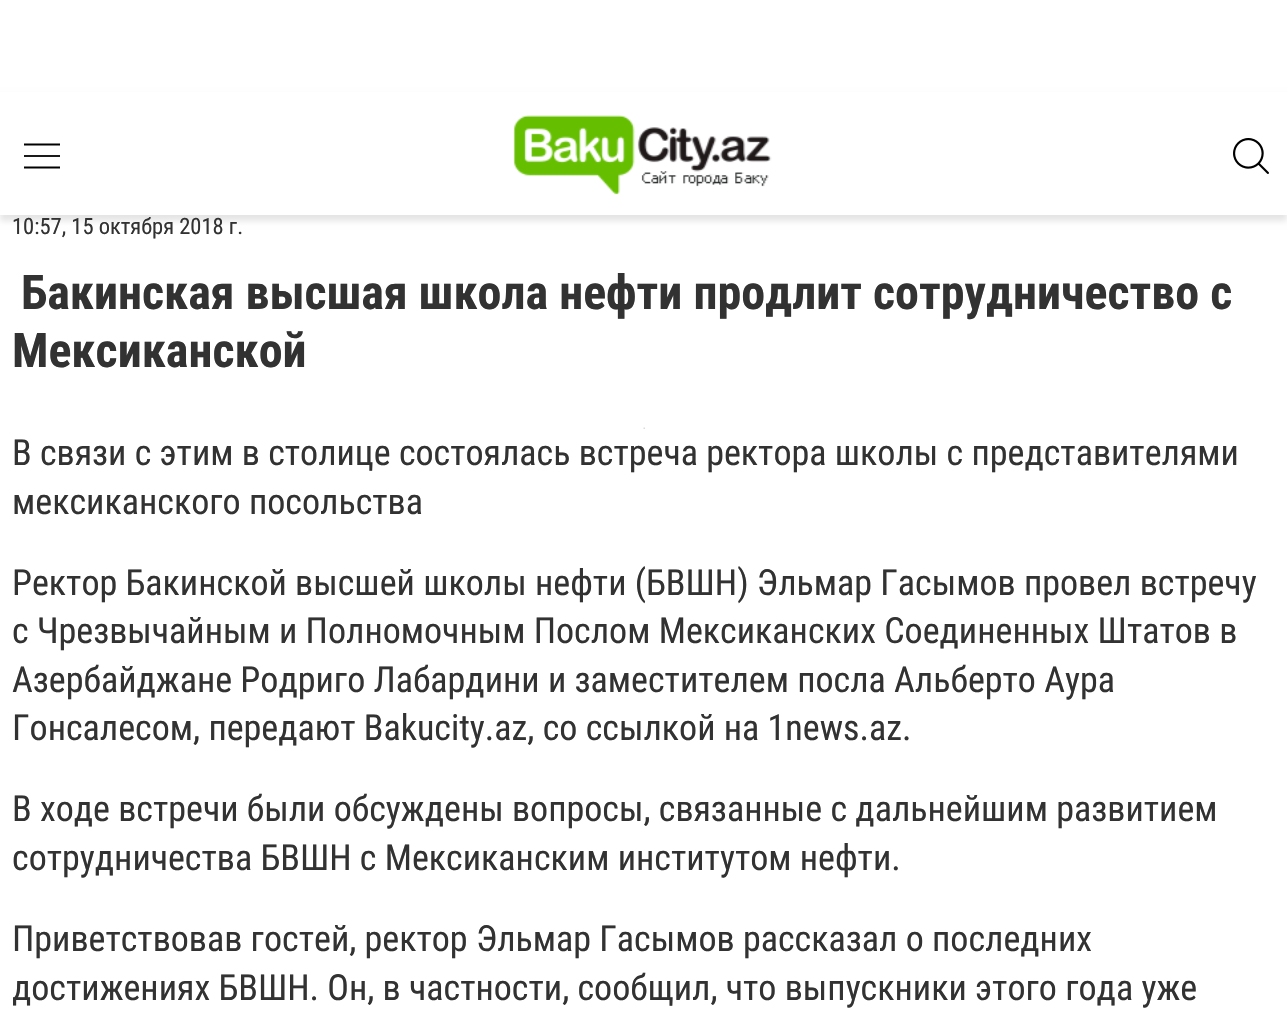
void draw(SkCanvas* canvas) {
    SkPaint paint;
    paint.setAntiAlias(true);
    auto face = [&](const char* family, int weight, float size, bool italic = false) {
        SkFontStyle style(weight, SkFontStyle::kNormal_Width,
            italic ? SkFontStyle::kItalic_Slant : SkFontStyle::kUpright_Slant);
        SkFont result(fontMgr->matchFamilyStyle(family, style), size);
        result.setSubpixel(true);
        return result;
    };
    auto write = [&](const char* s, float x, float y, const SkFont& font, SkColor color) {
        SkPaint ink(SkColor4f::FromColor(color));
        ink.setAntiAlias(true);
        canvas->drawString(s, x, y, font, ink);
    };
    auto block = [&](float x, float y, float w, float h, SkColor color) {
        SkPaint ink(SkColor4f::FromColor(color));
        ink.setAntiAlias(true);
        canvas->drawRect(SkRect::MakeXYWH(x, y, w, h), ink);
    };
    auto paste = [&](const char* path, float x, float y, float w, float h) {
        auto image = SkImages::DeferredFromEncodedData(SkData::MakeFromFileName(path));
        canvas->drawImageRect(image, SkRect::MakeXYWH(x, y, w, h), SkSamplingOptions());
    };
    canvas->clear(SK_ColorWHITE);
    paint.setColor(SkColorSetARGB(26, 0, 0, 0));
    paint.setMaskFilter(SkMaskFilter::MakeBlur(kNormal_SkBlurStyle, 3));
    canvas->drawRect(SkRect::MakeXYWH(0, 96, 1287, 125), paint);
    paint.setMaskFilter(nullptr);
    block(0, 92, 1287, 123, SK_ColorWHITE);
    paint.setStyle(SkPaint::kStroke_Style);
    paint.setStrokeWidth(1.8f);
    paint.setColor(SK_ColorBLACK);
    canvas->drawPath(SkPathBuilder().moveTo(24, 144.5f).lineTo(60, 144.5f).detach(), paint);
    block(24, 155, 36, 2, SkColorSetRGB(26, 26, 26));
    canvas->drawPath(SkPathBuilder().moveTo(24, 167.5f).lineTo(60, 167.5f).detach(), paint);
    paste("pic1.png", 513, 115, 259, 80);
    paste("pic2.png", 1233, 138, 36, 36);
    auto kFont1 = face("Roboto Condensed", 400, 22.5f);
    write("10:57, 15 октября 2018 г.", 12, 234, kFont1, SkColorSetRGB(50, 50, 50));
    auto kFont2 = face("Roboto Condensed", 700, 48);
    write("Бакинская высшая школа нефти продлит сотрудничество с", 21, 309, kFont2, SkColorSetRGB(50, 50, 50));
    write("Мексиканской", 12, 367, kFont2, SkColorSetRGB(50, 50, 50));
    paste("pic3.png", 643, 427, 2, 2);
    auto kFont3 = face("Roboto Condensed", 400, 36);
    write("В связи с этим в столице состоялась встреча ректора школы с представителями", 12, 465, kFont3, SkColorSetRGB(50, 50, 50));
    write("мексиканского посольства", 12, 514, kFont3, SkColorSetRGB(50, 50, 50));
    write("Ректор Бакинской высшей школы нефти (БВШН) Эльмар Гасымов провел встречу", 12, 595, kFont3, SkColorSetRGB(50, 50, 50));
    write("с Чрезвычайным и Полномочным Послом Мексиканских Соединенных Штатов в", 12, 643, kFont3, SkColorSetRGB(50, 50, 50));
    write("Азербайджане Родриго Лабардини и заместителем посла Альберто Аура", 12, 692, kFont3, SkColorSetRGB(50, 50, 50));
    write("Гонсалесом, передают Bakucity.az, со ссылкой на 1news.az.", 12, 740, kFont3, SkColorSetRGB(50, 50, 50));
    write("В ходе встречи были обсуждены вопросы, связанные с дальнейшим развитием", 12, 821, kFont3, SkColorSetRGB(50, 50, 50));
    write("сотрудничества БВШН с Мексиканским институтом нефти.", 12, 870, kFont3, SkColorSetRGB(50, 50, 50));
    write("Приветствовав гостей, ректор Эльмар Гасымов рассказал о последних", 12, 951, kFont3, SkColorSetRGB(50, 50, 50));
    write("достижениях БВШН. Он, в частности, сообщил, что выпускники этого года уже", 12, 1000, kFont3, SkColorSetRGB(50, 50, 50));
}
